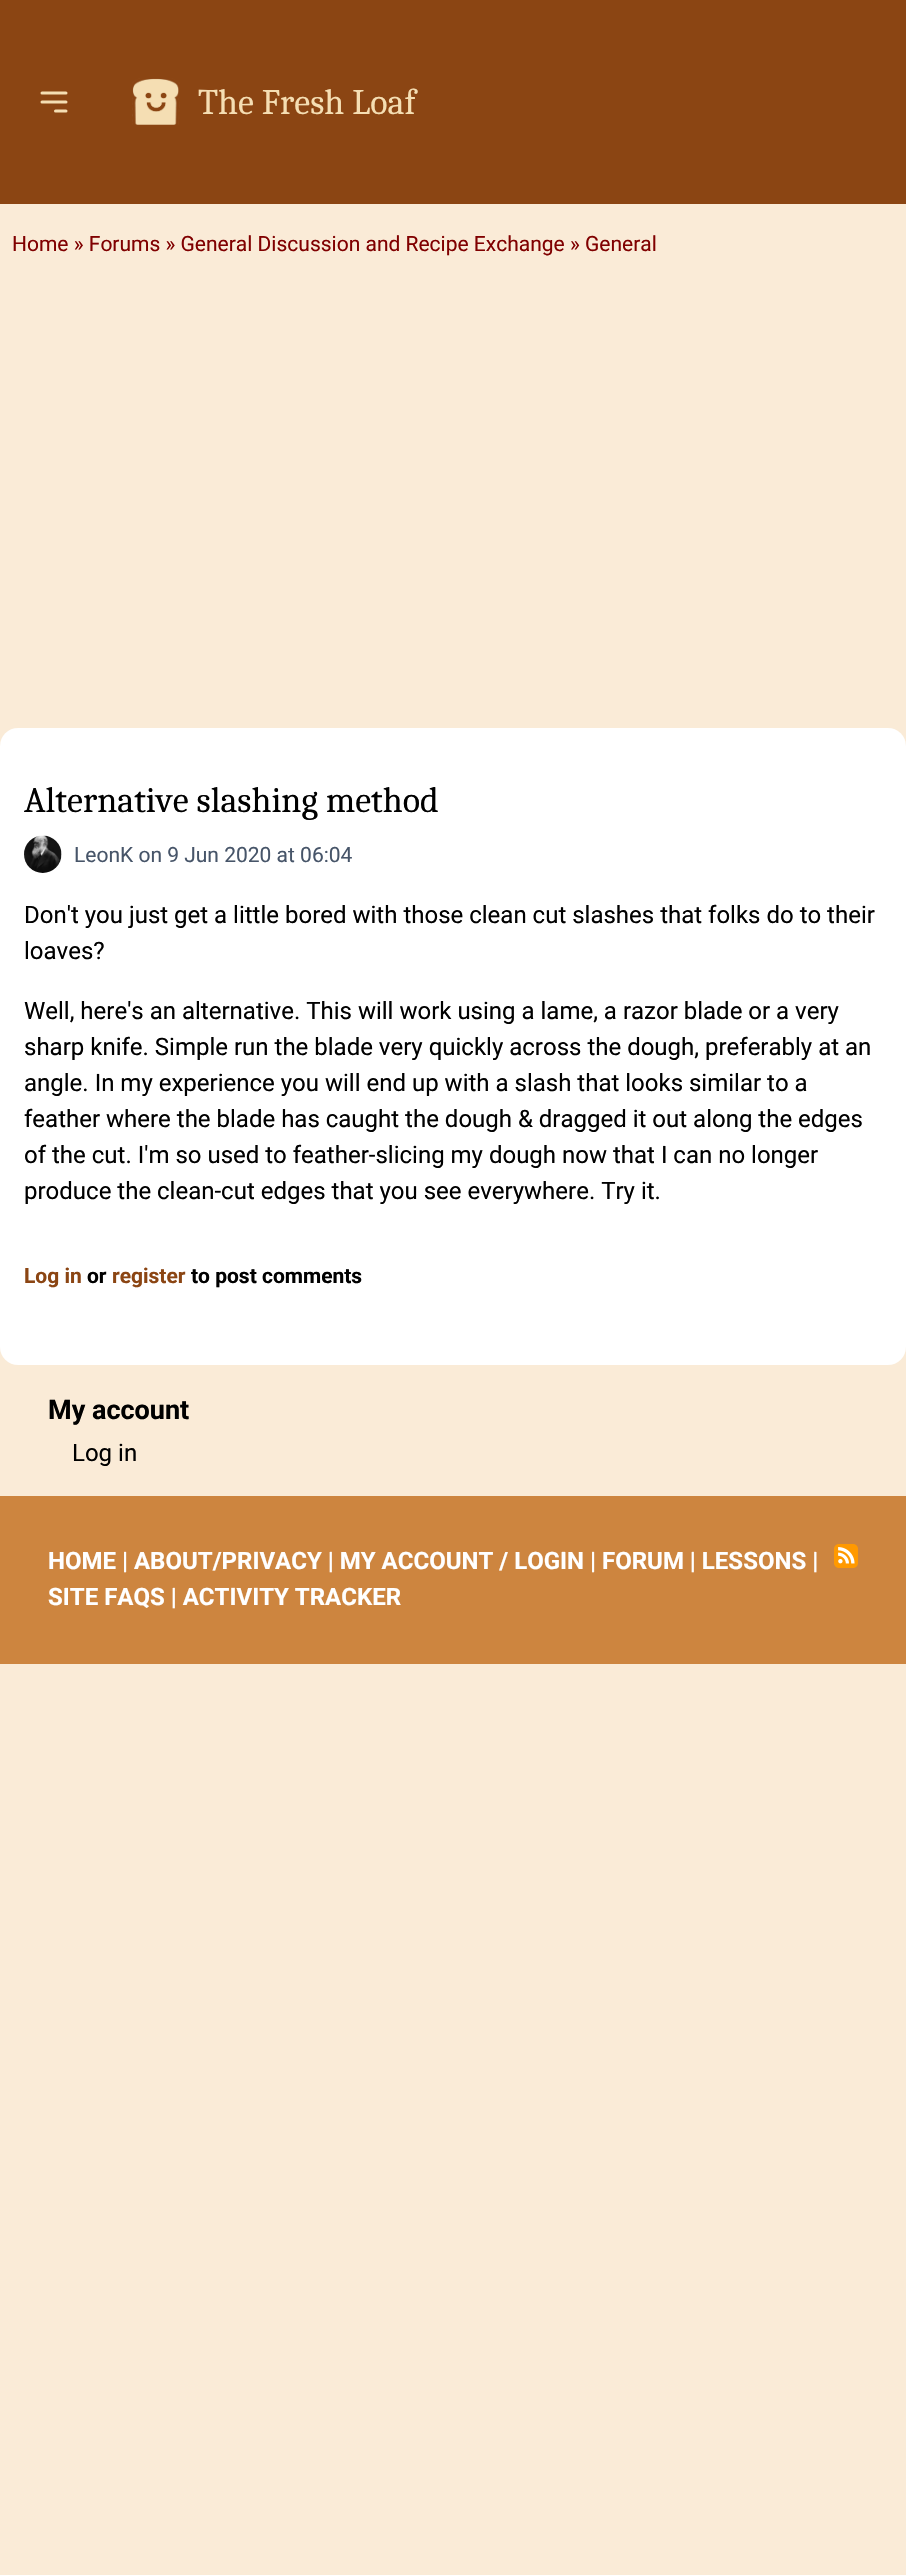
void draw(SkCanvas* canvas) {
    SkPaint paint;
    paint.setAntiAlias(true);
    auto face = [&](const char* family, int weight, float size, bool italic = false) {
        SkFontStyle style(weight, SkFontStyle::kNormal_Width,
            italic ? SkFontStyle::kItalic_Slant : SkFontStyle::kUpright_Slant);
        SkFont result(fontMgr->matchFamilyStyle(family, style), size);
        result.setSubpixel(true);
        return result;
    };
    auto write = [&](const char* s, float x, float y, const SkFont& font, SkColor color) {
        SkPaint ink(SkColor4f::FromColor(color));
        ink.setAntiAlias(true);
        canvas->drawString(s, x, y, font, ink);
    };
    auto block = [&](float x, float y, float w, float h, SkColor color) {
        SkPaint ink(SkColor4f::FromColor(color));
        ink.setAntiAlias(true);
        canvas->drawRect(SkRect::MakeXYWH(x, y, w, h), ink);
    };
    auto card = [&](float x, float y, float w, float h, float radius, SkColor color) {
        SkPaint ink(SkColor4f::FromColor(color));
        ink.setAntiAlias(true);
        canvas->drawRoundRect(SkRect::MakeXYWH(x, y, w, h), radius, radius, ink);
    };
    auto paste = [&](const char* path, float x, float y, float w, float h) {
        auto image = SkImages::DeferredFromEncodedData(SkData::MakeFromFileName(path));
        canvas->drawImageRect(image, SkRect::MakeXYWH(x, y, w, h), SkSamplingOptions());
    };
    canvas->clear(SkColorSetRGB(250, 235, 215));
    block(0, 0, 906, 204, SkColorSetRGB(139, 69, 19));
    paint.setStyle(SkPaint::kStroke_Style);
    paint.setStrokeWidth(3);
    paint.setStrokeCap(SkPaint::kRound_Cap);
    paint.setStrokeJoin(SkPaint::kRound_Join);
    paint.setColor(SkColorSetRGB(245, 222, 179));
    canvas->drawPath(SkPathBuilder().moveTo(42, 93).lineTo(66, 93).moveTo(42, 102).lineTo(66, 102).moveTo(55.5f, 111).lineTo(66, 111).detach(), paint);
    paste("pic1.png", 132, 78, 48, 47);
    auto kFont1 = face("Caladea", 400, 36);
    write("The Fresh Loaf", 198, 114, kFont1, SkColorSetRGB(245, 222, 179));
    auto kFont2 = face("Roboto", 400, 21);
    write("Home » Forums » General Discussion and Recipe Exchange » General", 12, 251, kFont2, SkColorSetRGB(128, 0, 0));
    card(0, 728, 906, 637, 18, SK_ColorWHITE);
    write("Alternative slashing method", 24, 812, kFont1, SK_ColorBLACK);
    paste("pic2.png", 24, 835, 38, 38);
    write("LeonK on 9 Jun 2020 at 06:04", 74, 862, kFont2, SkColorSetRGB(71, 85, 105));
    auto kFont3 = face("Roboto", 400, 24);
    write("Don't you just get a little bored with those clean cut slashes that folks do to their", 24, 923, kFont3, SK_ColorBLACK);
    write("loaves?", 24, 959, kFont3, SK_ColorBLACK);
    write("Well, here's an alternative. This will work using a lame, a razor blade or a very", 24, 1019, kFont3, SK_ColorBLACK);
    write("sharp knife. Simple run the blade very quickly across the dough, preferably at an", 24, 1055, kFont3, SK_ColorBLACK);
    write("angle. In my experience you will end up with a slash that looks similar to a", 24, 1091, kFont3, SK_ColorBLACK);
    write("feather where the blade has caught the dough & dragged it out along the edges", 24, 1127, kFont3, SK_ColorBLACK);
    write("of the cut. I'm so used to feather-slicing my dough now that I can no longer", 24, 1163, kFont3, SK_ColorBLACK);
    write("produce the clean-cut edges that you see everywhere. Try it.", 24, 1199, kFont3, SK_ColorBLACK);
    auto kFont4 = face("Roboto", 700, 21);
    write("Log in", 24, 1283, kFont4, SkColorSetRGB(139, 69, 19));
    write("or", 87, 1283, kFont4, SK_ColorBLACK);
    write("register", 112, 1283, kFont4, SkColorSetRGB(139, 69, 19));
    write("to post comments", 191, 1283, kFont4, SK_ColorBLACK);
    auto kFont5 = face("Roboto", 700, 27);
    write("My account", 48, 1419, kFont5, SK_ColorBLACK);
    write("Log in", 72, 1461, kFont3, SK_ColorBLACK);
    block(0, 1496, 906, 168, SkColorSetRGB(205, 133, 63));
    auto kFont6 = face("Roboto", 700, 24);
    write("HOME | ABOUT/PRIVACY | MY ACCOUNT / LOGIN | FORUM | LESSONS |", 48, 1569, kFont6, SK_ColorWHITE);
    write("SITE FAQS | ACTIVITY TRACKER", 48, 1605, kFont6, SK_ColorWHITE);
    paste("pic3.png", 834, 1544, 24, 24);
}
